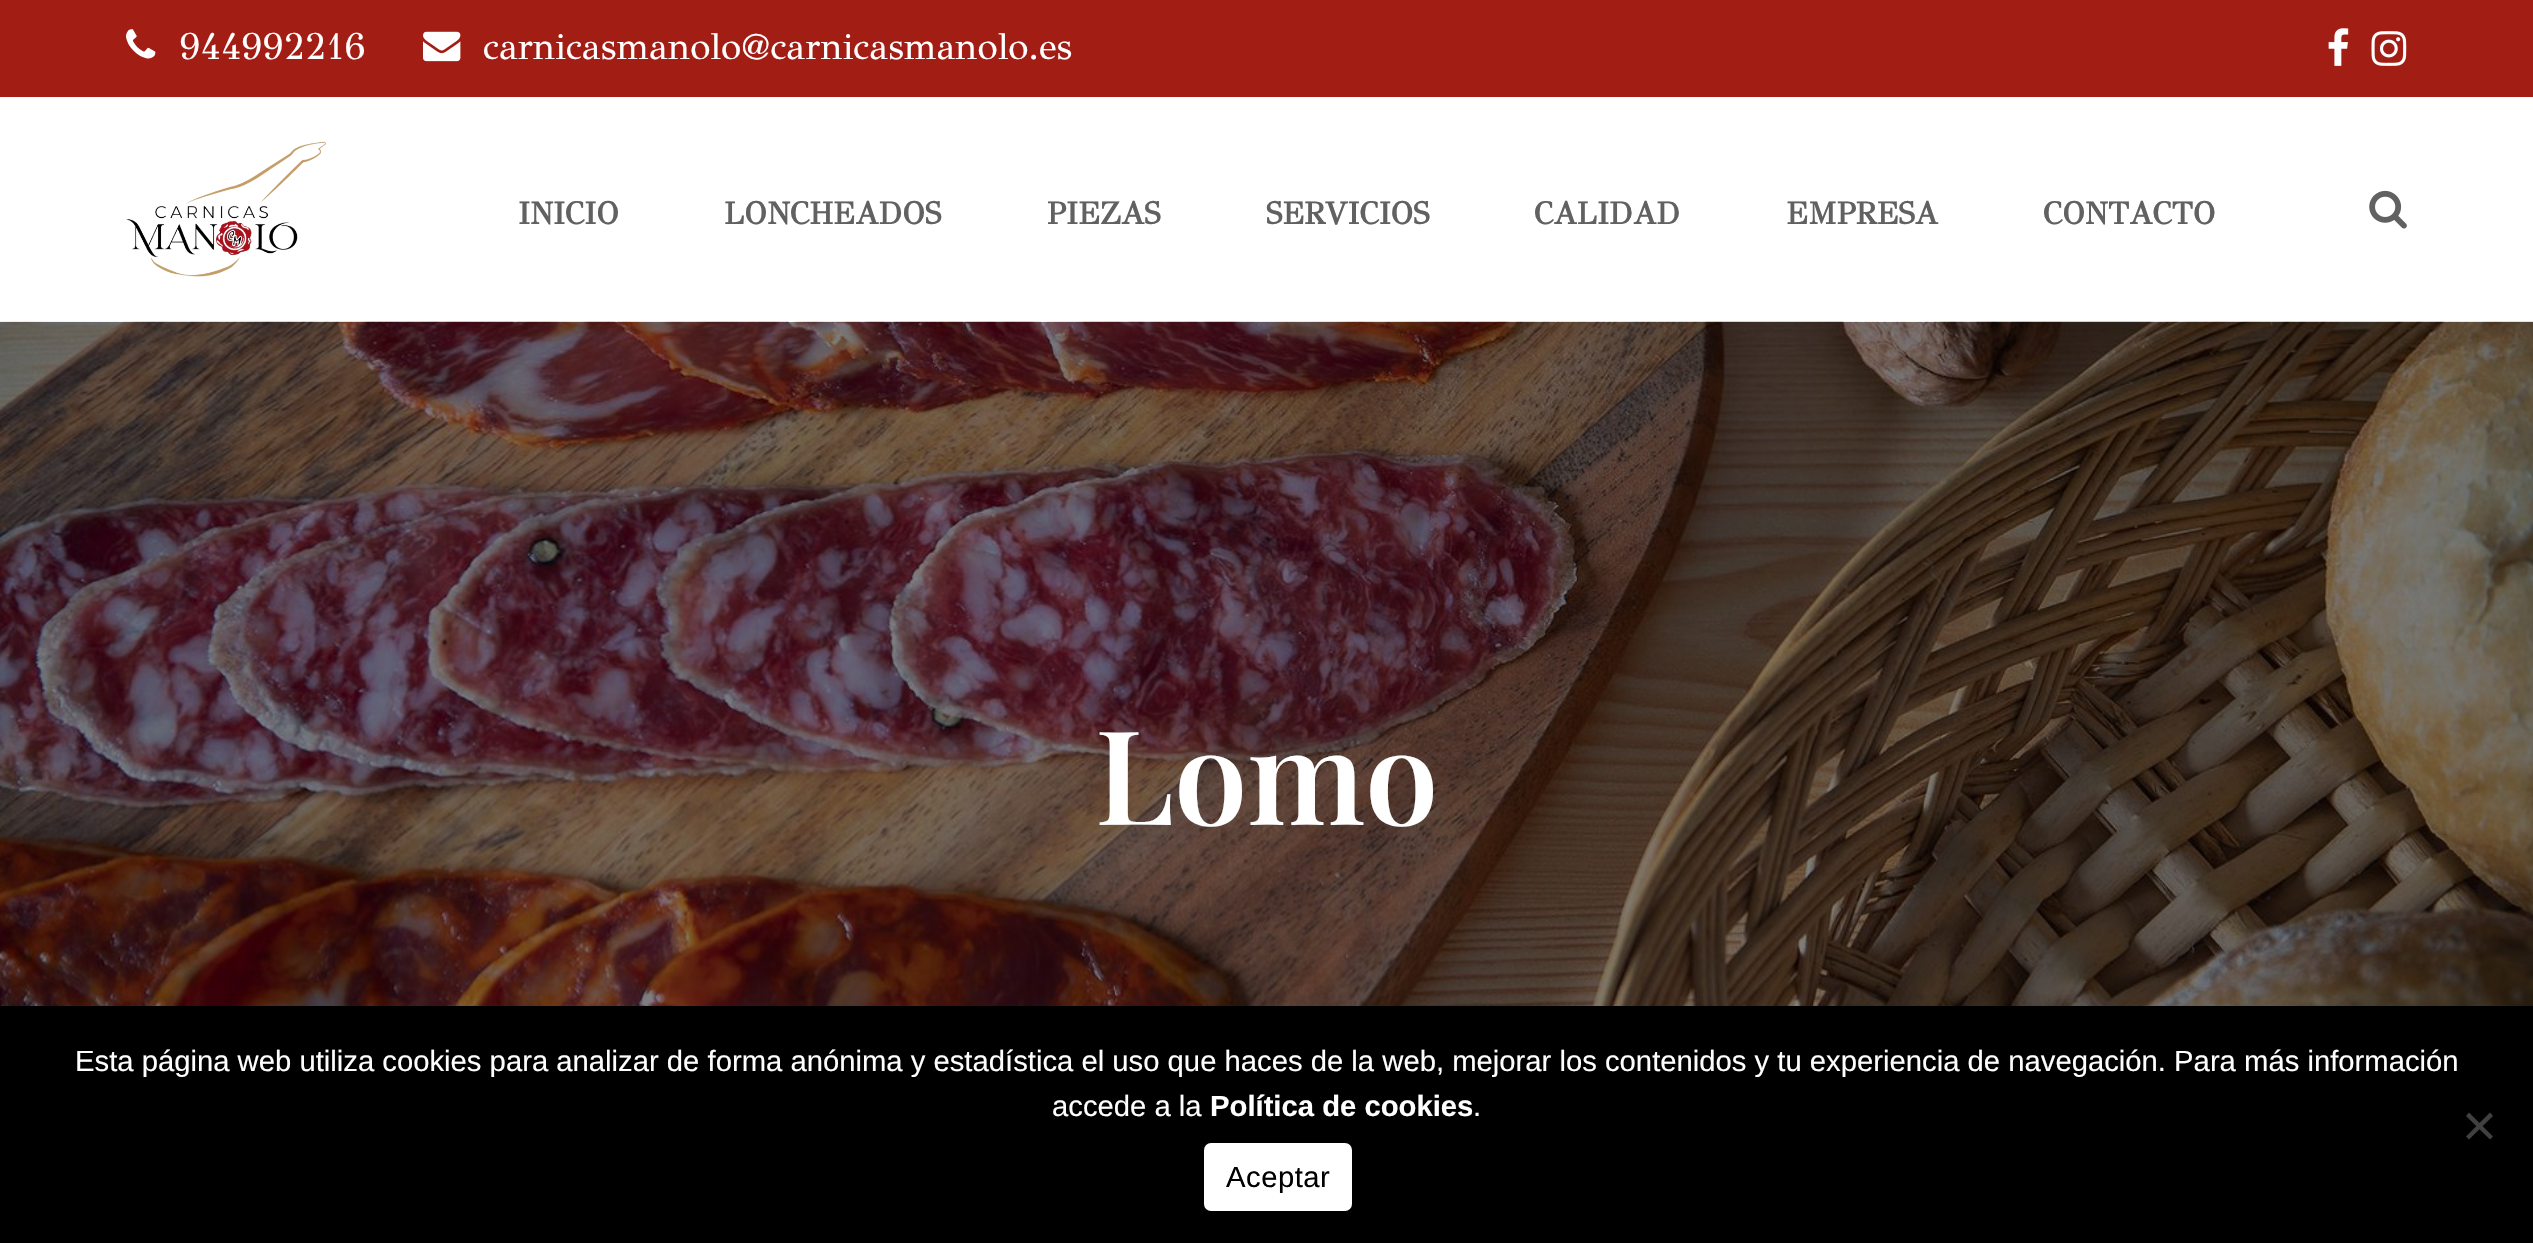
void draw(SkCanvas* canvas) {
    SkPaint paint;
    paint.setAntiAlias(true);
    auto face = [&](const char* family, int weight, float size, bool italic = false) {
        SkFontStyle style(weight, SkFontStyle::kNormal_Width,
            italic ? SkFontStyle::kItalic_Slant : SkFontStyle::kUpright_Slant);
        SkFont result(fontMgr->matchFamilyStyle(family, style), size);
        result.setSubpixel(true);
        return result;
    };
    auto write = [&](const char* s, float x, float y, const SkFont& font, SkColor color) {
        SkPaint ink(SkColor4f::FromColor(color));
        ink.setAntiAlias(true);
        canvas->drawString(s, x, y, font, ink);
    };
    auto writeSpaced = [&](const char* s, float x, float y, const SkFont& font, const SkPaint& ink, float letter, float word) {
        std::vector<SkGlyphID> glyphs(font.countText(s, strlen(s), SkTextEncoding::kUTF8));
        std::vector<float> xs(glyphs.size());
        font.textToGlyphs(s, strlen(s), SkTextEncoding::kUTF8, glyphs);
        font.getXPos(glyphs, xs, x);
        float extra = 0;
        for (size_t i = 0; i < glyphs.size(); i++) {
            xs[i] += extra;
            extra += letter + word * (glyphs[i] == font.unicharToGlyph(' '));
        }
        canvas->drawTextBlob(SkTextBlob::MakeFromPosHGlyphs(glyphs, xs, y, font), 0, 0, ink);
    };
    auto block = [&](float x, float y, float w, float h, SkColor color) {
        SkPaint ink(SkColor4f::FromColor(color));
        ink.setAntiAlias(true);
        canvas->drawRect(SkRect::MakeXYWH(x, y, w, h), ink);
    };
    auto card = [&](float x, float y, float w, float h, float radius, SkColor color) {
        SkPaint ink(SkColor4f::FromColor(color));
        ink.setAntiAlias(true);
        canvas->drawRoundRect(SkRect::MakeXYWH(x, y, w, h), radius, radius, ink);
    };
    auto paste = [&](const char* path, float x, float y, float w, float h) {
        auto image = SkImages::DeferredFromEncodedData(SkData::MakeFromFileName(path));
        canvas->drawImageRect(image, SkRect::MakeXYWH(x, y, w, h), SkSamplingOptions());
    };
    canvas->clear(SK_ColorWHITE);
    block(0, 0, 2533, 97, SkColorSetRGB(162, 29, 20));
    paste("pic1.png", 126, 29, 30, 30);
    auto kFont1 = face("GFS Didot", 400, 37.4f);
    write("944992216", 179, 59, kFont1, SK_ColorWHITE);
    paste("pic2.png", 423, 31, 38, 31);
    write("carnicasmanolo@carnicasmanolo.es", 483, 59, kFont1, SK_ColorWHITE);
    paste("pic3.png", 2328, 28, 21, 38);
    paste("pic4.png", 2371, 31, 36, 35);
    paste("pic5.png", 126, 141, 200, 136);
    auto kFont2 = face("GFS Didot", 700, 31.5f);
    write("INICIO", 518, 224, kFont2, SkColorSetRGB(97, 97, 97));
    write("LONCHEADOS", 724, 224, kFont2, SkColorSetRGB(97, 97, 97));
    write("PIEZAS", 1047, 224, kFont2, SkColorSetRGB(97, 97, 97));
    write("SERVICIOS", 1266, 224, kFont2, SkColorSetRGB(97, 97, 97));
    write("CALIDAD", 1534, 224, kFont2, SkColorSetRGB(97, 97, 97));
    write("EMPRESA", 1786, 224, kFont2, SkColorSetRGB(97, 97, 97));
    write("CONTACTO", 2043, 224, kFont2, SkColorSetRGB(97, 97, 97));
    paste("pic6.png", 2369, 190, 38, 39);
    paste("pic7.png", 0, 321, 2533, 685);
    auto kFont3 = face("Playfair Display", 600, 131);
    write("Lomo", 1095, 825, kFont3, SK_ColorWHITE);
    block(0, 1006, 2533, 237, SK_ColorBLACK);
    auto kFont4 = face("Liberation Sans", 400, 29.25f);
    write("Esta página web utiliza cookies para analizar de forma anónima y estadística el uso que haces de la web, mejorar los contenidos y tu experiencia de navegación. Para más información", 75, 1071, kFont4, SK_ColorWHITE);
    write("accede a la", 1052, 1116, kFont4, SK_ColorWHITE);
    auto kFont5 = face("Liberation Sans", 700, 29.25f);
    write("Política de cookies", 1210, 1116, kFont5, SK_ColorWHITE);
    write(".", 1473, 1116, kFont4, SK_ColorWHITE);
    paint.setColor(SkColorSetRGB(64, 64, 64));
    canvas->drawPath(SkPathBuilder().moveTo(2490, 1112.5f).lineTo(2493, 1116).lineTo(2469, 1139.5f).lineTo(2466, 1136.5f).close().detach(), paint);
    canvas->drawPath(SkPathBuilder().moveTo(2466, 1116).lineTo(2469, 1112.5f).lineTo(2493, 1136.5f).lineTo(2490, 1139.5f).close().detach(), paint);
    card(1204, 1143, 148, 68, 7, SK_ColorWHITE);
    paint.setColor(SK_ColorBLACK);
    writeSpaced("Aceptar", 1226, 1187, kFont4, paint, 0.5f, 0);
}
